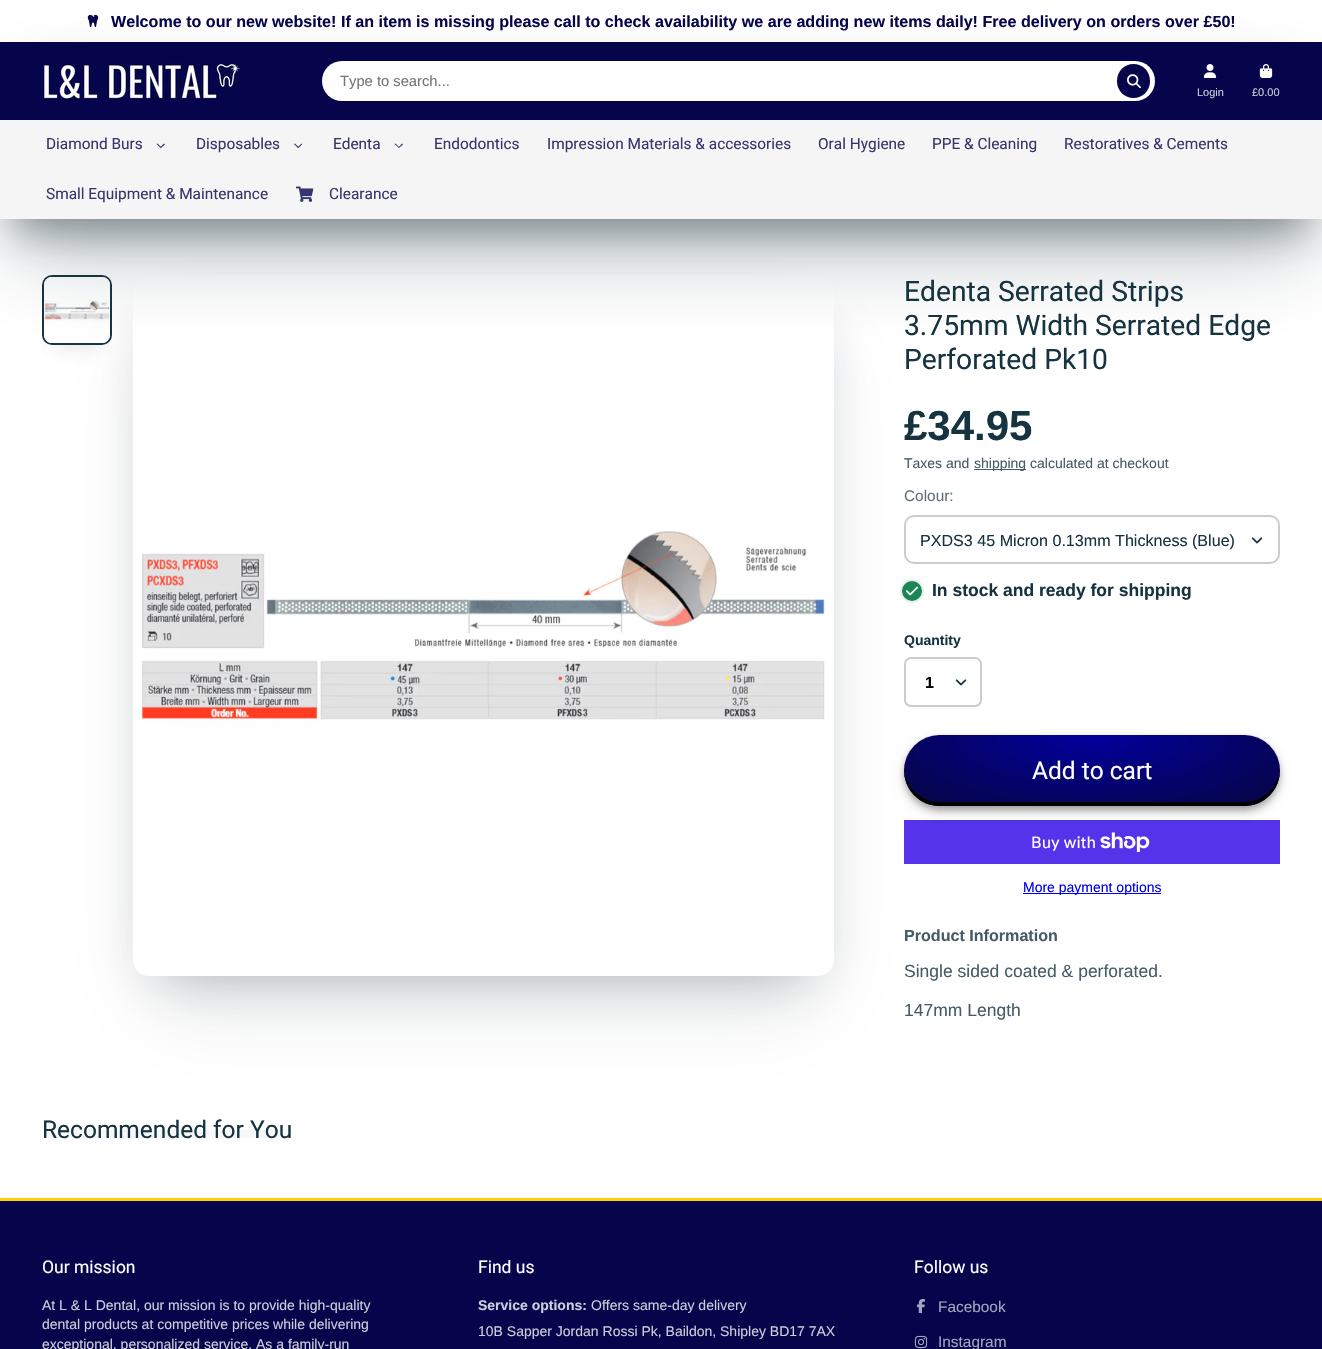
void draw(SkCanvas* canvas) {
    SkPaint paint;
    paint.setAntiAlias(true);
    auto face = [&](const char* family, int weight, float size, bool italic = false) {
        SkFontStyle style(weight, SkFontStyle::kNormal_Width,
            italic ? SkFontStyle::kItalic_Slant : SkFontStyle::kUpright_Slant);
        SkFont result(fontMgr->matchFamilyStyle(family, style), size);
        result.setSubpixel(true);
        return result;
    };
    auto write = [&](const char* s, float x, float y, const SkFont& font, SkColor color) {
        SkPaint ink(SkColor4f::FromColor(color));
        ink.setAntiAlias(true);
        canvas->drawString(s, x, y, font, ink);
    };
    auto block = [&](float x, float y, float w, float h, SkColor color) {
        SkPaint ink(SkColor4f::FromColor(color));
        ink.setAntiAlias(true);
        canvas->drawRect(SkRect::MakeXYWH(x, y, w, h), ink);
    };
    auto card = [&](float x, float y, float w, float h, float radius, SkColor color) {
        SkPaint ink(SkColor4f::FromColor(color));
        ink.setAntiAlias(true);
        canvas->drawRoundRect(SkRect::MakeXYWH(x, y, w, h), radius, radius, ink);
    };
    auto paste = [&](const char* path, float x, float y, float w, float h) {
        auto image = SkImages::DeferredFromEncodedData(SkData::MakeFromFileName(path));
        canvas->drawImageRect(image, SkRect::MakeXYWH(x, y, w, h), SkSamplingOptions());
    };
    canvas->clear(SK_ColorWHITE);
    paste("pic1.png", 87, 14, 12, 14);
    auto kFont1 = face("Liberation Sans", 700, 16.1f);
    write("Welcome to our new website! If an item is missing please call to check availability we are adding new items daily! Free delivery on orders over £50!", 111, 27, kFont1, SkColorSetRGB(6, 5, 75));
    canvas->save();
    canvas->clipRect(SkRect::MakeXYWH(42, 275, 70, 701));
    paint.setColor(SkColorSetARGB(77, 15, 36, 45));
    paint.setMaskFilter(SkMaskFilter::MakeBlur(kNormal_SkBlurStyle, 14));
    canvas->drawRect(SkRect::MakeXYWH(56, 296, 42, 42), paint);
    paint.setMaskFilter(nullptr);
    canvas->restore();
    paint.setStyle(SkPaint::kStroke_Style);
    paint.setStrokeWidth(2);
    paint.setColor(SkColorSetRGB(22, 51, 64));
    canvas->drawRoundRect(SkRect::MakeXYWH(43, 276, 68, 68), 9, 9, paint);
    paste("pic8.png", 44, 277, 66, 66);
    paint.setStyle(SkPaint::kFill_Style);
    paint.setColor(SkColorSetARGB(77, 15, 36, 45));
    paint.setMaskFilter(SkMaskFilter::MakeBlur(kNormal_SkBlurStyle, 26));
    canvas->drawRect(SkRect::MakeXYWH(159, 328, 649, 648), paint);
    paint.setMaskFilter(nullptr);
    {
        const SkColor colors[] = {SK_ColorWHITE, SkColorSetRGB(245, 247, 248), SkColorSetRGB(245, 247, 248), SK_ColorWHITE};
        const float stops[] = {0, 0.15f, 0.85f, 1};
        const SkPoint ends[] = {{36, 1134}, {298, 1134}};
        paint.setShader(SkGradientShader::MakeLinear(ends, colors, stops, 4, SkTileMode::kClamp));
        paint.setAlpha(255);
    }
    canvas->drawRect(SkRect::MakeXYWH(46, 1130, 242, 8), paint);
    paint.setShader(nullptr);
    paint.setColor(SkColorSetARGB(26, 15, 36, 45));
    paint.setMaskFilter(SkMaskFilter::MakeBlur(kNormal_SkBlurStyle, 44));
    canvas->drawRect(SkRect::MakeXYWH(151, 336, 666, 666), paint);
    paint.setMaskFilter(nullptr);
    card(133, 275, 701, 701, 16, SK_ColorWHITE);
    paint.setColor(SkColorSetARGB(102, 15, 36, 45));
    paint.setMaskFilter(SkMaskFilter::MakeBlur(kNormal_SkBlurStyle, 19));
    canvas->drawRect(SkRect::MakeXYWH(14, 82, 1294, 149), paint);
    paint.setMaskFilter(nullptr);
    paint.setColor(SkColorSetARGB(77, 15, 36, 45));
    paint.setMaskFilter(SkMaskFilter::MakeBlur(kNormal_SkBlurStyle, 44));
    canvas->drawRect(SkRect::MakeXYWH(14, 100, 1294, 149), paint);
    paint.setMaskFilter(nullptr);
    block(0, 42, 1322, 78, SkColorSetRGB(6, 5, 75));
    paste("pic2.png", 42, 62, 199, 42);
    card(322, 61, 833, 40, 20, SK_ColorWHITE);
    auto kFont2 = face("Liberation Sans", 400, 14.75f);
    write("Type to search...", 340, 86, kFont2, SkColorSetRGB(117, 117, 117));
    card(1117, 64, 33, 34, 16.5f, SkColorSetRGB(6, 5, 75));
    paste("pic3.png", 1127, 74, 14, 14);
    paste("pic4.png", 1203, 64, 14, 14);
    auto kFont3 = face("Liberation Sans", 400, 11);
    write("Login", 1197, 96, kFont3, SkColorSetRGB(205, 205, 219));
    paste("pic5.png", 1259, 64, 14, 14);
    write("£0.00", 1252, 96, kFont3, SkColorSetRGB(205, 205, 219));
    block(0, 120, 1322, 99, SkColorSetRGB(245, 245, 245));
    auto kFont4 = face("Roboto", 400, 15.4f);
    write("Diamond Burs", 46, 149, kFont4, SkColorSetRGB(54, 53, 109));
    paint.setColor(SkColorSetRGB(54, 53, 109));
    canvas->drawPath(SkPathBuilder().moveTo(164, 143.5f).lineTo(165, 144.5f).lineTo(161, 148).lineTo(160, 147.5f).close().detach(), paint);
    canvas->drawPath(SkPathBuilder().moveTo(157.5f, 143.5f).lineTo(161.5f, 147.5f).lineTo(160.5f, 148).lineTo(156.5f, 144).close().detach(), paint);
    write("Disposables", 196, 149, kFont4, SkColorSetRGB(54, 53, 109));
    canvas->drawPath(SkPathBuilder().moveTo(301.5f, 143.5f).lineTo(302, 144.5f).lineTo(298.5f, 148).lineTo(297.5f, 147.5f).close().detach(), paint);
    canvas->drawPath(SkPathBuilder().moveTo(295, 143.5f).lineTo(299, 147.5f).lineTo(298, 148).lineTo(294, 144).close().detach(), paint);
    write("Edenta", 333, 149, kFont4, SkColorSetRGB(54, 53, 109));
    canvas->drawPath(SkPathBuilder().moveTo(402, 143.5f).lineTo(403, 144.5f).lineTo(399, 148).lineTo(398.5f, 147.5f).close().detach(), paint);
    canvas->drawPath(SkPathBuilder().moveTo(395.5f, 143.5f).lineTo(399.5f, 147.5f).lineTo(399, 148).lineTo(394.5f, 144).close().detach(), paint);
    write("Endodontics", 434, 149, kFont4, SkColorSetRGB(54, 53, 109));
    write("Impression Materials & accessories", 547, 149, kFont4, SkColorSetRGB(54, 53, 109));
    write("Oral Hygiene", 818, 149, kFont4, SkColorSetRGB(54, 53, 109));
    write("PPE & Cleaning", 932, 149, kFont4, SkColorSetRGB(54, 53, 109));
    write("Restoratives & Cements", 1064, 149, kFont4, SkColorSetRGB(54, 53, 109));
    write("Small Equipment & Maintenance", 46, 199, kFont4, SkColorSetRGB(54, 53, 109));
    paste("pic6.png", 296, 186, 18, 16);
    write("Clearance", 329, 199, kFont4, SkColorSetRGB(54, 53, 109));
    paste("pic7.png", 141, 531, 685, 444);
    auto kFont5 = face("Roboto", 400, 28.2f);
    write("Edenta Serrated Strips", 904, 301, kFont5, SkColorSetRGB(22, 51, 64));
    write("3.75mm Width Serrated Edge", 904, 335, kFont5, SkColorSetRGB(22, 51, 64));
    write("Perforated Pk10", 904, 369, kFont5, SkColorSetRGB(22, 51, 64));
    auto kFont6 = face("Liberation Sans", 700, 42);
    write("£34.95", 904, 440, kFont6, SkColorSetRGB(22, 51, 64));
    auto kFont7 = face("Liberation Sans", 400, 14);
    write("Taxes and", 904, 468, kFont7, SkColorSetRGB(69, 92, 102));
    block(974, 469, 52, 1, SkColorSetRGB(69, 92, 102));
    write("shipping calculated at checkout", 974, 468, kFont7, SkColorSetRGB(69, 92, 102));
    auto kFont8 = face("Liberation Sans", 400, 15.4f);
    write("Colour:", 904, 501, kFont8, SkColorSetRGB(92, 112, 121));
    paint.setStyle(SkPaint::kStroke_Style);
    paint.setColor(SkColorSetRGB(204, 204, 204));
    canvas->drawRoundRect(SkRect::MakeXYWH(905, 516, 374, 47), 9, 9, paint);
    auto kFont9 = face("Liberation Sans", 400, 16.1f);
    write("PXDS3 45 Micron 0.13mm Thickness (Blue)", 920, 546, kFont9, SkColorSetRGB(22, 51, 64));
    paste("pic9.png", 1251, 537, 12, 7);
    paint.setStyle(SkPaint::kFill_Style);
    paint.setColor(SkColorSetRGB(25, 135, 84));
    canvas->drawCircle(912, 591, 11, paint);
    paint.setStyle(SkPaint::kStroke_Style);
    paint.setColor(SkColorSetRGB(237, 237, 237));
    canvas->drawCircle(912, 591, 11, paint);
    paste("pic10.png", 906, 586, 13, 10);
    auto kFont10 = face("Liberation Sans", 700, 17.5f);
    write("In stock and ready for shipping", 932, 596, kFont10, SkColorSetRGB(22, 51, 64));
    auto kFont11 = face("Liberation Sans", 700, 14);
    write("Quantity", 904, 645, kFont11, SkColorSetRGB(22, 51, 64));
    paint.setColor(SkColorSetRGB(204, 204, 204));
    canvas->drawRoundRect(SkRect::MakeXYWH(905, 658, 76, 48), 6, 6, paint);
    write("1", 925, 688, kFont1, SK_ColorBLACK);
    paste("pic9.png", 955, 679, 12, 7);
    block(904, 820, 376, 44, SkColorSetRGB(84, 51, 235));
    paste("pic11.png", 1100, 832, 50, 20);
    paint.setStyle(SkPaint::kFill_Style);
    paint.setColor(SkColorSetARGB(38, 0, 0, 0));
    paint.setMaskFilter(SkMaskFilter::MakeBlur(kNormal_SkBlurStyle, 7.5f));
    canvas->drawRoundRect(SkRect::MakeXYWH(908, 746, 368, 64), 32, 32, paint);
    paint.setMaskFilter(nullptr);
    paint.setColor(SkColorSetARGB(77, 0, 0, 0));
    paint.setMaskFilter(SkMaskFilter::MakeBlur(kNormal_SkBlurStyle, 3.5f));
    canvas->drawRoundRect(SkRect::MakeXYWH(904, 739, 376, 71), 35.5f, 35.5f, paint);
    paint.setMaskFilter(nullptr);
    canvas->save();
    canvas->clipPath(SkPathBuilder().moveTo(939.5f, 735).lineTo(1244.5f, 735).cubicTo(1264, 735, 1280, 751, 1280, 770.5f).cubicTo(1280, 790, 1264, 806, 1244.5f, 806).lineTo(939.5f, 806).cubicTo(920, 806, 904, 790, 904, 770.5f).cubicTo(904, 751, 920, 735, 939.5f, 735).close().detach(), true);
    paint.setColor(SkColorSetARGB(38, 0, 0, 0));
    paint.setMaskFilter(SkMaskFilter::MakeBlur(kNormal_SkBlurStyle, 7.5f));
    canvas->drawRoundRect(SkRect::MakeXYWH(908, 746, 368, 64), 32, 32, paint);
    paint.setMaskFilter(nullptr);
    paint.setColor(SkColorSetARGB(77, 0, 0, 0));
    paint.setMaskFilter(SkMaskFilter::MakeBlur(kNormal_SkBlurStyle, 3.5f));
    canvas->drawRoundRect(SkRect::MakeXYWH(904, 739, 376, 71), 35.5f, 35.5f, paint);
    paint.setMaskFilter(nullptr);
    canvas->restore();
    {
        const SkColor colors[] = {SkColorSetRGB(2, 0, 157), SkColorSetRGB(6, 5, 75)};
        const float stops[] = {0, 0.9f};
        SkMatrix m = SkMatrix::Translate(1092, 735).preScale(266, 100);
        paint.setShader(SkGradientShader::MakeRadial({0, 0}, 1, colors, stops, 2, SkTileMode::kClamp, 0, &m));
        paint.setAlpha(255);
    }
    canvas->drawRoundRect(SkRect::MakeXYWH(904, 735, 376, 71), 35.5f, 35.5f, paint);
    paint.setShader(nullptr);
    paint.setColor(SK_ColorBLACK);
    canvas->drawPath(SkPathBuilder().moveTo(904, 769).lineTo(904, 770).cubicTo(904, 790, 920, 806, 940, 806).lineTo(1244, 806).cubicTo(1264, 806, 1280, 790, 1280, 770).lineTo(1280, 769).cubicTo(1279, 787, 1263, 802, 1244, 802).lineTo(940, 802).cubicTo(921, 802, 905, 787, 904, 769).close().detach(), paint);
    auto kFont12 = face("Roboto", 400, 24.5f);
    write("Add to cart", 1032, 779, kFont12, SK_ColorWHITE);
    auto kFont13 = face("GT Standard", 400, 16);
    write("Buy with", 1031, 848, kFont13, SK_ColorWHITE);
    block(1023, 893, 138, 1, SkColorSetRGB(0, 0, 238));
    write("More payment options", 1023, 892, kFont7, SkColorSetRGB(0, 0, 238));
    write("Product Information", 904, 941, kFont1, SkColorSetRGB(69, 92, 102));
    auto kFont14 = face("Liberation Sans", 400, 17.5f);
    write("Single sided coated & perforated.", 904, 977, kFont14, SkColorSetRGB(69, 92, 102));
    write("147mm Length", 904, 1016, kFont14, SkColorSetRGB(69, 92, 102));
    write("Recommended for You", 42, 1138, kFont12, SkColorSetRGB(22, 51, 64));
    block(0, 1201, 1322, 148, SkColorSetRGB(6, 5, 75));
    block(0, 1198, 1322, 3, SkColorSetRGB(251, 207, 0));
    auto kFont15 = face("Roboto", 400, 17.5f);
    write("Our mission", 42, 1273, kFont15, SK_ColorWHITE);
    write("At L & L Dental, our mission is to provide high-quality", 42, 1310, kFont7, SkColorSetRGB(205, 205, 219));
    write("dental products at competitive prices while delivering", 42, 1329, kFont7, SkColorSetRGB(205, 205, 219));
    write("exceptional, personalized service. As a family-run", 42, 1349, kFont7, SkColorSetRGB(205, 205, 219));
    write("Find us", 478, 1273, kFont15, SK_ColorWHITE);
    write("Service options:", 478, 1310, kFont11, SkColorSetRGB(205, 205, 219));
    write("Offers same-day delivery", 591, 1310, kFont7, SkColorSetRGB(205, 205, 219));
    write("10B Sapper Jordan Rossi Pk, Baildon, Shipley BD17 7AX", 478, 1336, kFont7, SkColorSetRGB(205, 205, 219));
    write("Follow us", 914, 1273, kFont15, SK_ColorWHITE);
    paste("pic12.png", 917, 1299, 8, 14);
    write("Facebook", 938, 1312, kFont8, SkColorSetRGB(165, 165, 190));
    paste("pic13.png", 914, 1335, 14, 14);
    write("Instagram", 938, 1347, kFont8, SkColorSetRGB(165, 165, 190));
}
